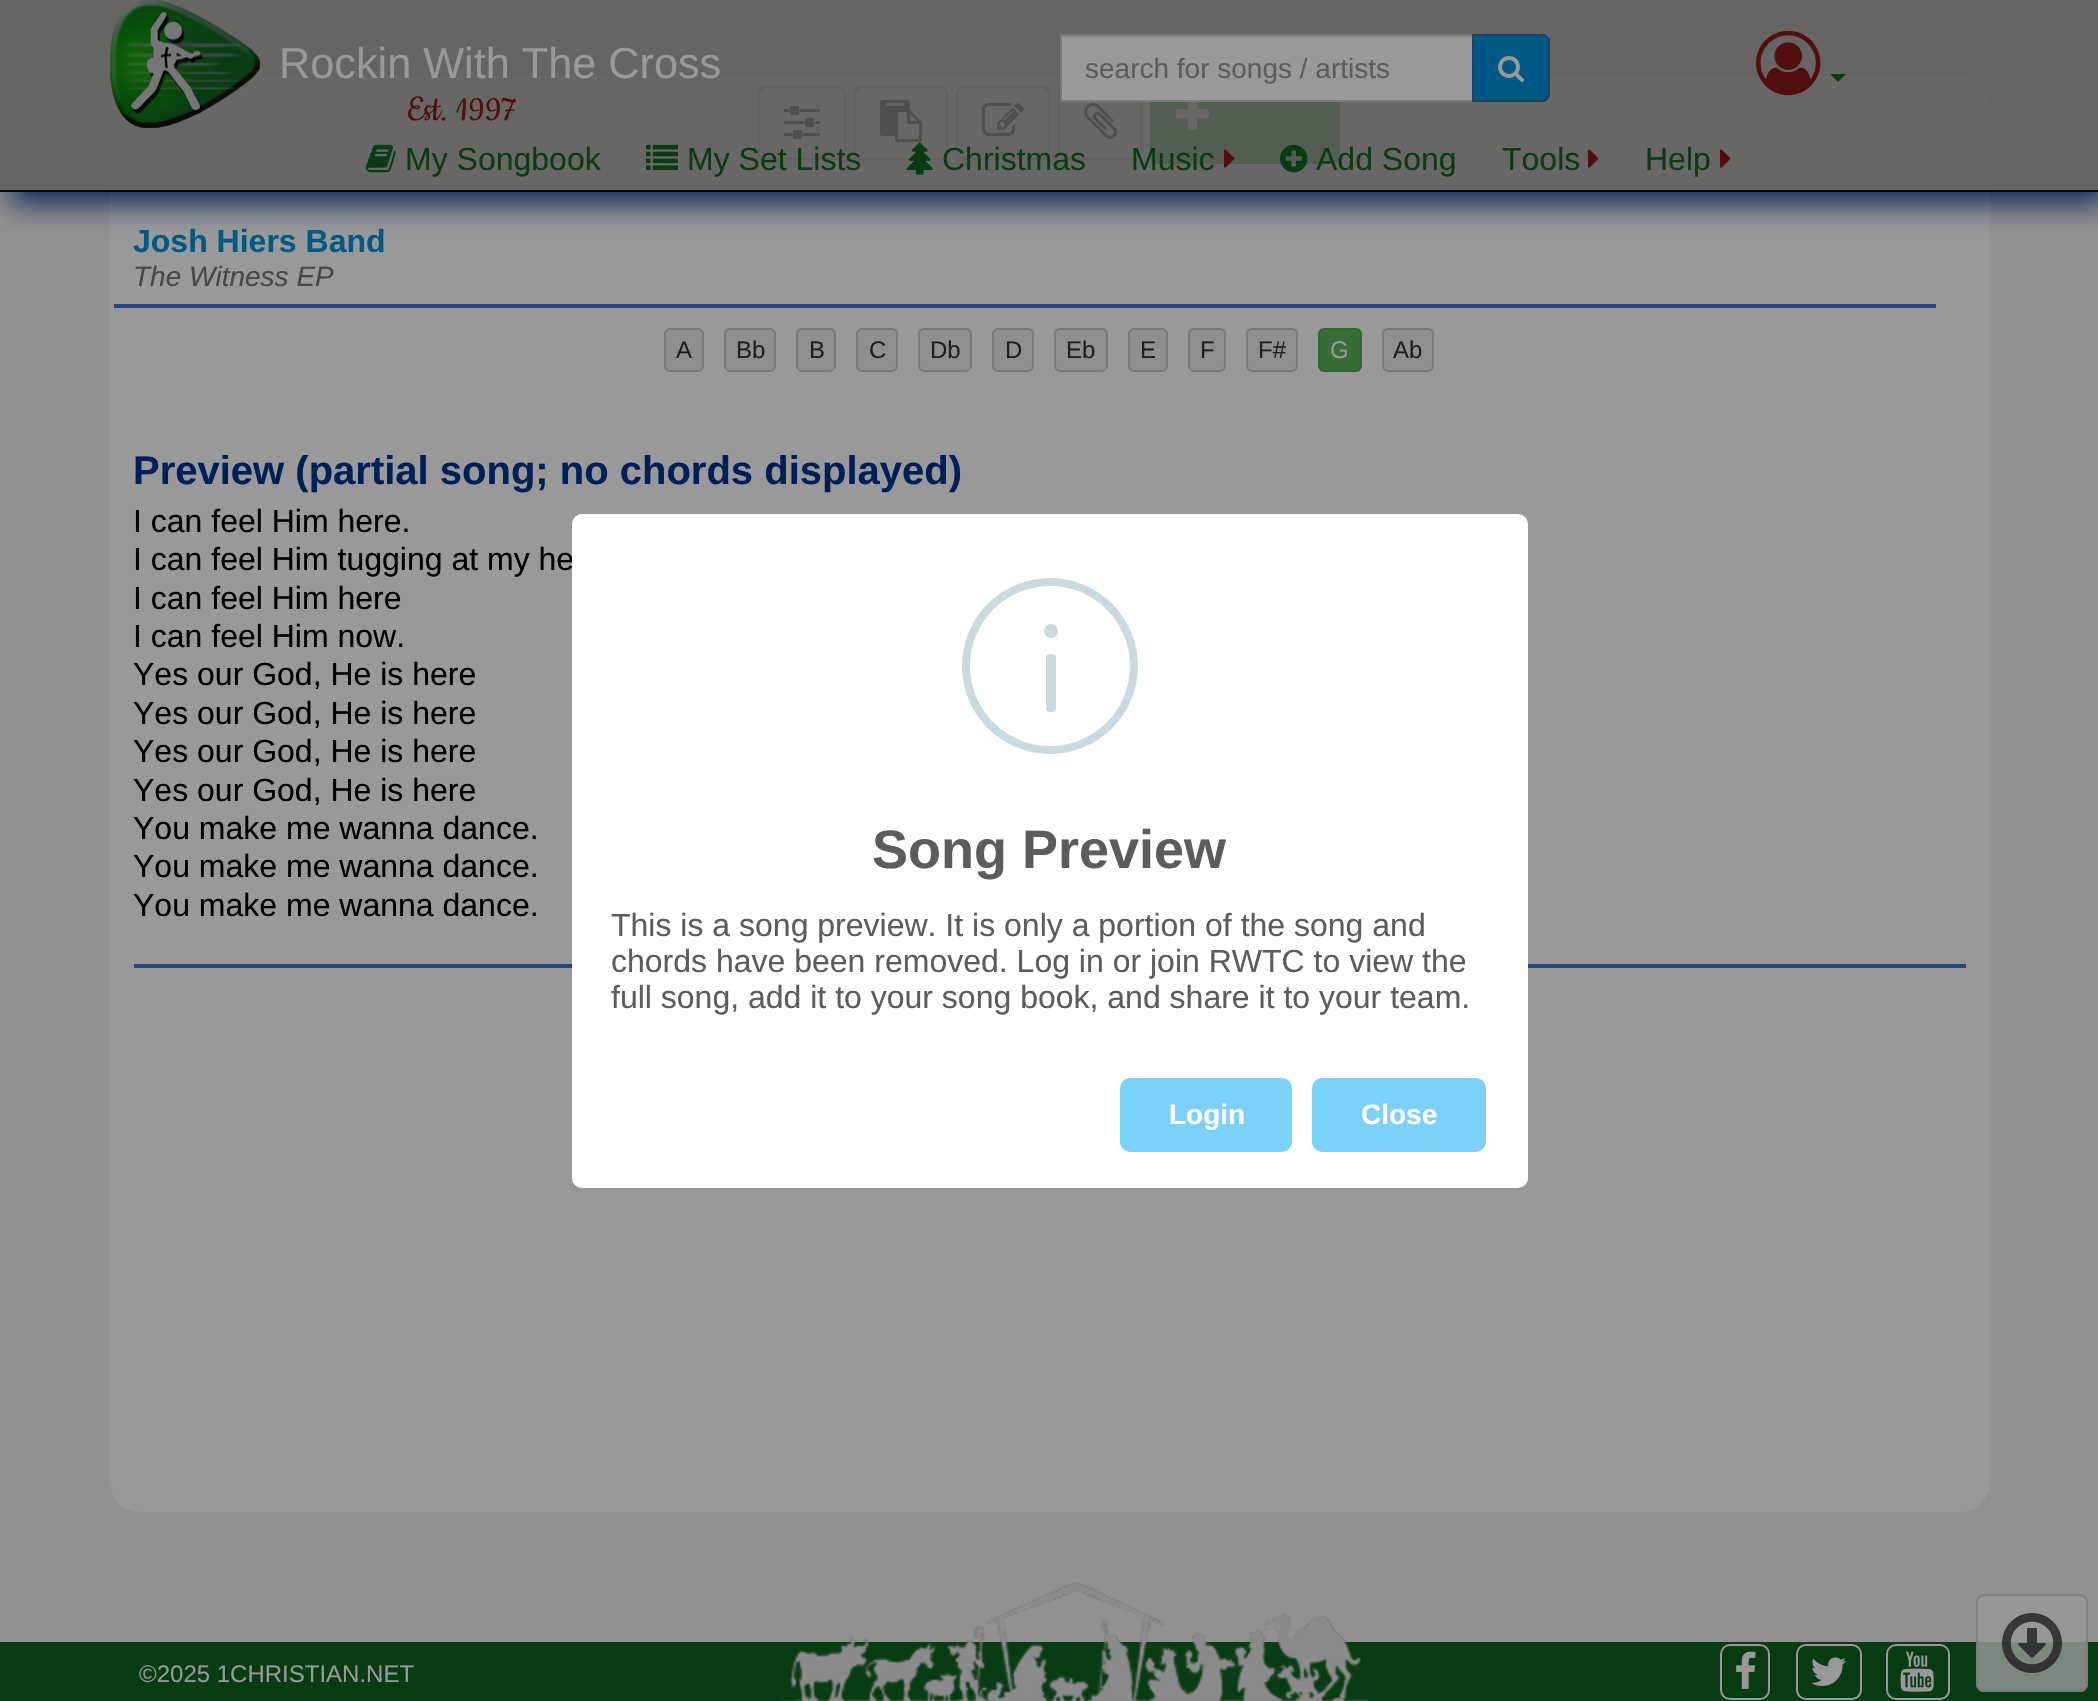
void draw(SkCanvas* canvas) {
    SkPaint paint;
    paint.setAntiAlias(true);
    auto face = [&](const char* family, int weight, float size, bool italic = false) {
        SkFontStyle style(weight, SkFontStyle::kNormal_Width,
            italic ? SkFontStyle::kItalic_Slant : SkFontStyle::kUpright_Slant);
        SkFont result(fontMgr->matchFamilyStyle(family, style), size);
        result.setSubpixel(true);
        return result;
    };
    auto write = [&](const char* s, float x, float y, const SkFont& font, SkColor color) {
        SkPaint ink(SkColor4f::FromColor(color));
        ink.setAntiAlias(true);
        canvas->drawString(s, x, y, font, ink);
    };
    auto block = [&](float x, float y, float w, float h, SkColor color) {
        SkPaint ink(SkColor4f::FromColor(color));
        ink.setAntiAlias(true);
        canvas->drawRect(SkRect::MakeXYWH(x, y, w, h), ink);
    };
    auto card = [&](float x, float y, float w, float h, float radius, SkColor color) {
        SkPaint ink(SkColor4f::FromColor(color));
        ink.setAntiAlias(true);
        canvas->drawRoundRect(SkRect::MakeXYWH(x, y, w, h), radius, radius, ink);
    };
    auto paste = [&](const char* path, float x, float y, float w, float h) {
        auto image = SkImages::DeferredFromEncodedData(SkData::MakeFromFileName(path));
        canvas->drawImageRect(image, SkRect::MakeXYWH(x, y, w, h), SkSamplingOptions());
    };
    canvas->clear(SkColorSetRGB(145, 145, 143));
    card(110, 76, 1880, 1436, 30, SkColorSetRGB(153, 153, 153));
    paint.setStyle(SkPaint::kStroke_Style);
    paint.setStrokeWidth(2);
    paint.setColor(SkColorSetRGB(122, 122, 122));
    canvas->drawRoundRect(SkRect::MakeXYWH(759, 87, 86, 72), 7, 7, paint);
    paste("pic10.png", 784, 106, 36, 33);
    canvas->drawRoundRect(SkRect::MakeXYWH(855, 87, 92, 72), 7, 7, paint);
    paste("pic11.png", 880, 100, 42, 42);
    canvas->drawRoundRect(SkRect::MakeXYWH(957, 87, 92, 72), 7, 7, paint);
    paste("pic12.png", 982, 103, 42, 33);
    canvas->drawRoundRect(SkRect::MakeXYWH(1059, 87, 82, 72), 7, 7, paint);
    paste("pic13.png", 1084, 103, 33, 36);
    paint.setStyle(SkPaint::kFill_Style);
    paint.setColor(SkColorSetRGB(55, 110, 55));
    canvas->drawRoundRect(SkRect::MakeXYWH(1151, 81, 188, 82), 7, 7, paint);
    paint.setStyle(SkPaint::kStroke_Style);
    paint.setColor(SkColorSetRGB(46, 104, 46));
    canvas->drawRoundRect(SkRect::MakeXYWH(1151, 81, 188, 82), 7, 7, paint);
    paste("pic14.png", 1176, 102, 33, 28);
    canvas->save();
    canvas->clipRect(SkRect::MakeXYWH(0, 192, 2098, 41));
    paint.setStyle(SkPaint::kFill_Style);
    paint.setColor(SkColorSetRGB(0, 31, 88));
    paint.setMaskFilter(SkMaskFilter::MakeBlur(kNormal_SkBlurStyle, 15));
    canvas->drawRect(SkRect::MakeXYWH(10, 10, 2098, 192), paint);
    paint.setMaskFilter(nullptr);
    canvas->restore();
    block(0, 190, 2098, 2, SkColorSetRGB(5, 5, 5));
    block(0, 0, 2098, 190, SkColorSetARGB(204, 91, 90, 89));
    paste("pic1.png", 110, 0, 150, 128);
    auto kFont1 = face("Liberation Sans", 400, 43.25f);
    write("Rockin With The Cross", 279, 78, kFont1, SkColorSetRGB(153, 153, 153));
    auto kFont2 = face("Cookie", 400, 39.5f);
    write("Est. 1997", 407, 120, kFont2, SkColorSetRGB(83, 15, 15));
    block(1062, 38, 410, 62, SkColorSetRGB(153, 153, 153));
    block(1062, 36, 410, 2, SkColorSetRGB(142, 142, 142));
    paint.setStyle(SkPaint::kStroke_Style);
    paint.setColor(SkColorSetRGB(122, 122, 122));
    canvas->drawRect(SkRect::MakeXYWH(1061, 35, 412, 66), paint);
    auto kFont3 = face("Liberation Sans", 400, 28);
    write("search for songs / artists", 1085, 78, kFont3, SkColorSetRGB(92, 92, 92));
    paint.setStyle(SkPaint::kFill_Style);
    paint.setColor(SkColorSetRGB(0, 89, 133));
    canvas->drawPath(SkPathBuilder().moveTo(1473, 35).lineTo(1542, 35).cubicTo(1546, 35, 1549, 38, 1549, 42).lineTo(1549, 94).cubicTo(1549, 98, 1546, 101, 1542, 101).lineTo(1473, 101).close().detach(), paint);
    paint.setStyle(SkPaint::kStroke_Style);
    paint.setColor(SkColorSetRGB(28, 65, 98));
    canvas->drawPath(SkPathBuilder().moveTo(1473, 35).lineTo(1542, 35).cubicTo(1546, 35, 1549, 38, 1549, 42).lineTo(1549, 94).cubicTo(1549, 98, 1546, 101, 1542, 101).lineTo(1473, 101).close().detach(), paint);
    paste("pic2.png", 1498, 56, 26, 26);
    paste("pic3.png", 1756, 30, 65, 66);
    paint.setStyle(SkPaint::kFill_Style);
    paint.setColor(SkColorSetRGB(8, 61, 19));
    canvas->drawPath(SkPathBuilder().moveTo(1830, 74).lineTo(1846, 74).lineTo(1838, 82).close().detach(), paint);
    paste("pic4.png", 366, 144, 30, 29);
    auto kFont4 = face("Liberation Sans", 400, 32);
    write("My Songbook", 405, 170, kFont4, SkColorSetRGB(8, 61, 19));
    paste("pic5.png", 646, 144, 32, 26);
    write("My Set Lists", 687, 170, kFont4, SkColorSetRGB(8, 61, 19));
    paste("pic6.png", 906, 142, 27, 33);
    write("Christmas", 942, 170, kFont4, SkColorSetRGB(8, 61, 19));
    write("Music", 1131, 170, kFont4, SkColorSetRGB(8, 61, 19));
    paste("pic7.png", 1224, 149, 11, 19);
    paste("pic8.png", 1280, 144, 28, 29);
    write("Add Song", 1316, 170, kFont4, SkColorSetRGB(8, 61, 19));
    write("Tools", 1502, 170, kFont4, SkColorSetRGB(8, 61, 19));
    paste("pic9.png", 1588, 149, 11, 19);
    write("Help", 1645, 170, kFont4, SkColorSetRGB(8, 61, 19));
    paste("pic9.png", 1720, 149, 11, 19);
    block(114, 304, 1822, 4, SkColorSetRGB(34, 70, 129));
    auto kFont5 = face("Liberation Sans", 700, 32);
    write("Josh Hiers Band", 133, 252, kFont5, SkColorSetRGB(0, 89, 133));
    auto kFont6 = face("Liberation Sans", 400, 28, true);
    write("The Witness EP", 133, 286, kFont6, SkColorSetRGB(71, 71, 71));
    paint.setColor(SkColorSetRGB(143, 143, 143));
    canvas->drawRoundRect(SkRect::MakeXYWH(665, 329, 38, 42), 5, 5, paint);
    paint.setStyle(SkPaint::kStroke_Style);
    paint.setColor(SkColorSetRGB(122, 122, 122));
    canvas->drawRoundRect(SkRect::MakeXYWH(665, 329, 38, 42), 5, 5, paint);
    auto kFont7 = face("Liberation Sans", 400, 24);
    write("A", 676, 358, kFont7, SkColorSetRGB(31, 31, 31));
    paint.setStyle(SkPaint::kFill_Style);
    paint.setColor(SkColorSetRGB(143, 143, 143));
    canvas->drawRoundRect(SkRect::MakeXYWH(725, 329, 50, 42), 5, 5, paint);
    paint.setStyle(SkPaint::kStroke_Style);
    paint.setColor(SkColorSetRGB(122, 122, 122));
    canvas->drawRoundRect(SkRect::MakeXYWH(725, 329, 50, 42), 5, 5, paint);
    write("Bb", 736, 358, kFont7, SkColorSetRGB(31, 31, 31));
    paint.setStyle(SkPaint::kFill_Style);
    paint.setColor(SkColorSetRGB(143, 143, 143));
    canvas->drawRoundRect(SkRect::MakeXYWH(797, 329, 38, 42), 5, 5, paint);
    paint.setStyle(SkPaint::kStroke_Style);
    paint.setColor(SkColorSetRGB(122, 122, 122));
    canvas->drawRoundRect(SkRect::MakeXYWH(797, 329, 38, 42), 5, 5, paint);
    write("B", 809, 358, kFont7, SkColorSetRGB(31, 31, 31));
    paint.setStyle(SkPaint::kFill_Style);
    paint.setColor(SkColorSetRGB(143, 143, 143));
    canvas->drawRoundRect(SkRect::MakeXYWH(857, 329, 40, 42), 5, 5, paint);
    paint.setStyle(SkPaint::kStroke_Style);
    paint.setColor(SkColorSetRGB(122, 122, 122));
    canvas->drawRoundRect(SkRect::MakeXYWH(857, 329, 40, 42), 5, 5, paint);
    write("C", 869, 358, kFont7, SkColorSetRGB(31, 31, 31));
    paint.setStyle(SkPaint::kFill_Style);
    paint.setColor(SkColorSetRGB(143, 143, 143));
    canvas->drawRoundRect(SkRect::MakeXYWH(919, 329, 52, 42), 5, 5, paint);
    paint.setStyle(SkPaint::kStroke_Style);
    paint.setColor(SkColorSetRGB(122, 122, 122));
    canvas->drawRoundRect(SkRect::MakeXYWH(919, 329, 52, 42), 5, 5, paint);
    write("Db", 930, 358, kFont7, SkColorSetRGB(31, 31, 31));
    paint.setStyle(SkPaint::kFill_Style);
    paint.setColor(SkColorSetRGB(143, 143, 143));
    canvas->drawRoundRect(SkRect::MakeXYWH(993, 329, 40, 42), 5, 5, paint);
    paint.setStyle(SkPaint::kStroke_Style);
    paint.setColor(SkColorSetRGB(122, 122, 122));
    canvas->drawRoundRect(SkRect::MakeXYWH(993, 329, 40, 42), 5, 5, paint);
    write("D", 1005, 358, kFont7, SkColorSetRGB(31, 31, 31));
    paint.setStyle(SkPaint::kFill_Style);
    paint.setColor(SkColorSetRGB(143, 143, 143));
    canvas->drawRoundRect(SkRect::MakeXYWH(1055, 329, 52, 42), 5, 5, paint);
    paint.setStyle(SkPaint::kStroke_Style);
    paint.setColor(SkColorSetRGB(122, 122, 122));
    canvas->drawRoundRect(SkRect::MakeXYWH(1055, 329, 52, 42), 5, 5, paint);
    write("Eb", 1066, 358, kFont7, SkColorSetRGB(31, 31, 31));
    paint.setStyle(SkPaint::kFill_Style);
    paint.setColor(SkColorSetRGB(143, 143, 143));
    canvas->drawRoundRect(SkRect::MakeXYWH(1129, 329, 38, 42), 5, 5, paint);
    paint.setStyle(SkPaint::kStroke_Style);
    paint.setColor(SkColorSetRGB(122, 122, 122));
    canvas->drawRoundRect(SkRect::MakeXYWH(1129, 329, 38, 42), 5, 5, paint);
    write("E", 1140, 358, kFont7, SkColorSetRGB(31, 31, 31));
    paint.setStyle(SkPaint::kFill_Style);
    paint.setColor(SkColorSetRGB(143, 143, 143));
    canvas->drawRoundRect(SkRect::MakeXYWH(1189, 329, 36, 42), 5, 5, paint);
    paint.setStyle(SkPaint::kStroke_Style);
    paint.setColor(SkColorSetRGB(122, 122, 122));
    canvas->drawRoundRect(SkRect::MakeXYWH(1189, 329, 36, 42), 5, 5, paint);
    write("F", 1200, 358, kFont7, SkColorSetRGB(31, 31, 31));
    paint.setStyle(SkPaint::kFill_Style);
    paint.setColor(SkColorSetRGB(143, 143, 143));
    canvas->drawRoundRect(SkRect::MakeXYWH(1247, 329, 50, 42), 5, 5, paint);
    paint.setStyle(SkPaint::kStroke_Style);
    paint.setColor(SkColorSetRGB(122, 122, 122));
    canvas->drawRoundRect(SkRect::MakeXYWH(1247, 329, 50, 42), 5, 5, paint);
    write("F#", 1258, 358, kFont7, SkColorSetRGB(31, 31, 31));
    paint.setStyle(SkPaint::kFill_Style);
    paint.setColor(SkColorSetRGB(55, 110, 55));
    canvas->drawRoundRect(SkRect::MakeXYWH(1319, 329, 42, 42), 5, 5, paint);
    paint.setStyle(SkPaint::kStroke_Style);
    paint.setColor(SkColorSetRGB(46, 104, 46));
    canvas->drawRoundRect(SkRect::MakeXYWH(1319, 329, 42, 42), 5, 5, paint);
    write("G", 1330, 358, kFont7, SkColorSetRGB(153, 153, 153));
    paint.setStyle(SkPaint::kFill_Style);
    paint.setColor(SkColorSetRGB(143, 143, 143));
    canvas->drawRoundRect(SkRect::MakeXYWH(1383, 329, 50, 42), 5, 5, paint);
    paint.setStyle(SkPaint::kStroke_Style);
    paint.setColor(SkColorSetRGB(122, 122, 122));
    canvas->drawRoundRect(SkRect::MakeXYWH(1383, 329, 50, 42), 5, 5, paint);
    write("Ab", 1393, 358, kFont7, SkColorSetRGB(31, 31, 31));
    auto kFont8 = face("Liberation Sans", 700, 40);
    write("Preview (partial song; no chords displayed)", 133, 484, kFont8, SkColorSetRGB(0, 31, 88));
    write("I can feel Him here.", 133, 532, kFont4, SK_ColorBLACK);
    write("I can feel Him tugging at my he", 133, 570, kFont4, SK_ColorBLACK);
    write("I can feel Him here", 133, 609, kFont4, SK_ColorBLACK);
    write("I can feel Him now.", 133, 647, kFont4, SK_ColorBLACK);
    write("Yes our God, He is here", 133, 685, kFont4, SK_ColorBLACK);
    write("Yes our God, He is here", 133, 724, kFont4, SK_ColorBLACK);
    write("Yes our God, He is here", 133, 762, kFont4, SK_ColorBLACK);
    write("Yes our God, He is here", 133, 801, kFont4, SK_ColorBLACK);
    write("You make me wanna dance.", 133, 839, kFont4, SK_ColorBLACK);
    write("You make me wanna dance.", 133, 877, kFont4, SK_ColorBLACK);
    write("You make me wanna dance.", 133, 916, kFont4, SK_ColorBLACK);
    block(134, 964, 1832, 4, SkColorSetRGB(34, 70, 129));
    card(572, 514, 956, 674, 10, SK_ColorWHITE);
    paint.setStrokeWidth(8);
    paint.setColor(SkColorSetRGB(201, 218, 225));
    canvas->drawCircle(1050, 666, 84, paint);
    paint.setStyle(SkPaint::kFill_Style);
    canvas->drawCircle(1051, 631, 7, paint);
    card(1046, 654, 10, 58, 4, SkColorSetRGB(201, 218, 225));
    auto kFont9 = face("Liberation Sans", 700, 54);
    write("Song Preview", 872, 868, kFont9, SkColorSetRGB(92, 92, 92));
    write("This is a song preview. It is only a portion of the song and", 611, 936, kFont4, SkColorSetRGB(92, 92, 92));
    write("chords have been removed. Log in or join RWTC to view the", 611, 972, kFont4, SkColorSetRGB(92, 92, 92));
    write("full song, add it to your song book, and share it to your team.", 611, 1008, kFont4, SkColorSetRGB(92, 92, 92));
    card(1120, 1078, 172, 74, 10, SkColorSetRGB(124, 209, 249));
    auto kFont10 = face("Liberation Sans", 700, 28);
    write("Login", 1169, 1124, kFont10, SK_ColorWHITE);
    card(1312, 1078, 174, 74, 10, SkColorSetRGB(124, 209, 249));
    write("Close", 1361, 1124, kFont10, SK_ColorWHITE);
    block(0, 1642, 2098, 59, SkColorSetRGB(8, 61, 19));
    write("©2025 1CHRISTIAN.NET", 139, 1682, kFont7, SkColorSetRGB(153, 153, 153));
    paste("pic15.png", 779, 1582, 589, 119);
    paint.setStyle(SkPaint::kStroke_Style);
    paint.setStrokeWidth(2);
    paint.setColor(SkColorSetRGB(153, 153, 153));
    canvas->drawRoundRect(SkRect::MakeXYWH(1721, 1645, 48, 54), 9, 9, paint);
    paste("pic16.png", 1736, 1651, 20, 38);
    canvas->drawRoundRect(SkRect::MakeXYWH(1797, 1645, 64, 54), 9, 9, paint);
    paste("pic17.png", 1811, 1657, 35, 29);
    canvas->drawRoundRect(SkRect::MakeXYWH(1887, 1645, 62, 54), 9, 9, paint);
    paste("pic18.png", 1900, 1651, 34, 41);
    card(1976, 1594, 112, 98, 8, SkColorSetARGB(204, 153, 153, 153));
    paint.setColor(SkColorSetARGB(204, 122, 122, 122));
    canvas->drawRoundRect(SkRect::MakeXYWH(1977, 1595, 110, 96), 7, 7, paint);
    paste("pic19.png", 2002, 1613, 60, 60);
}
